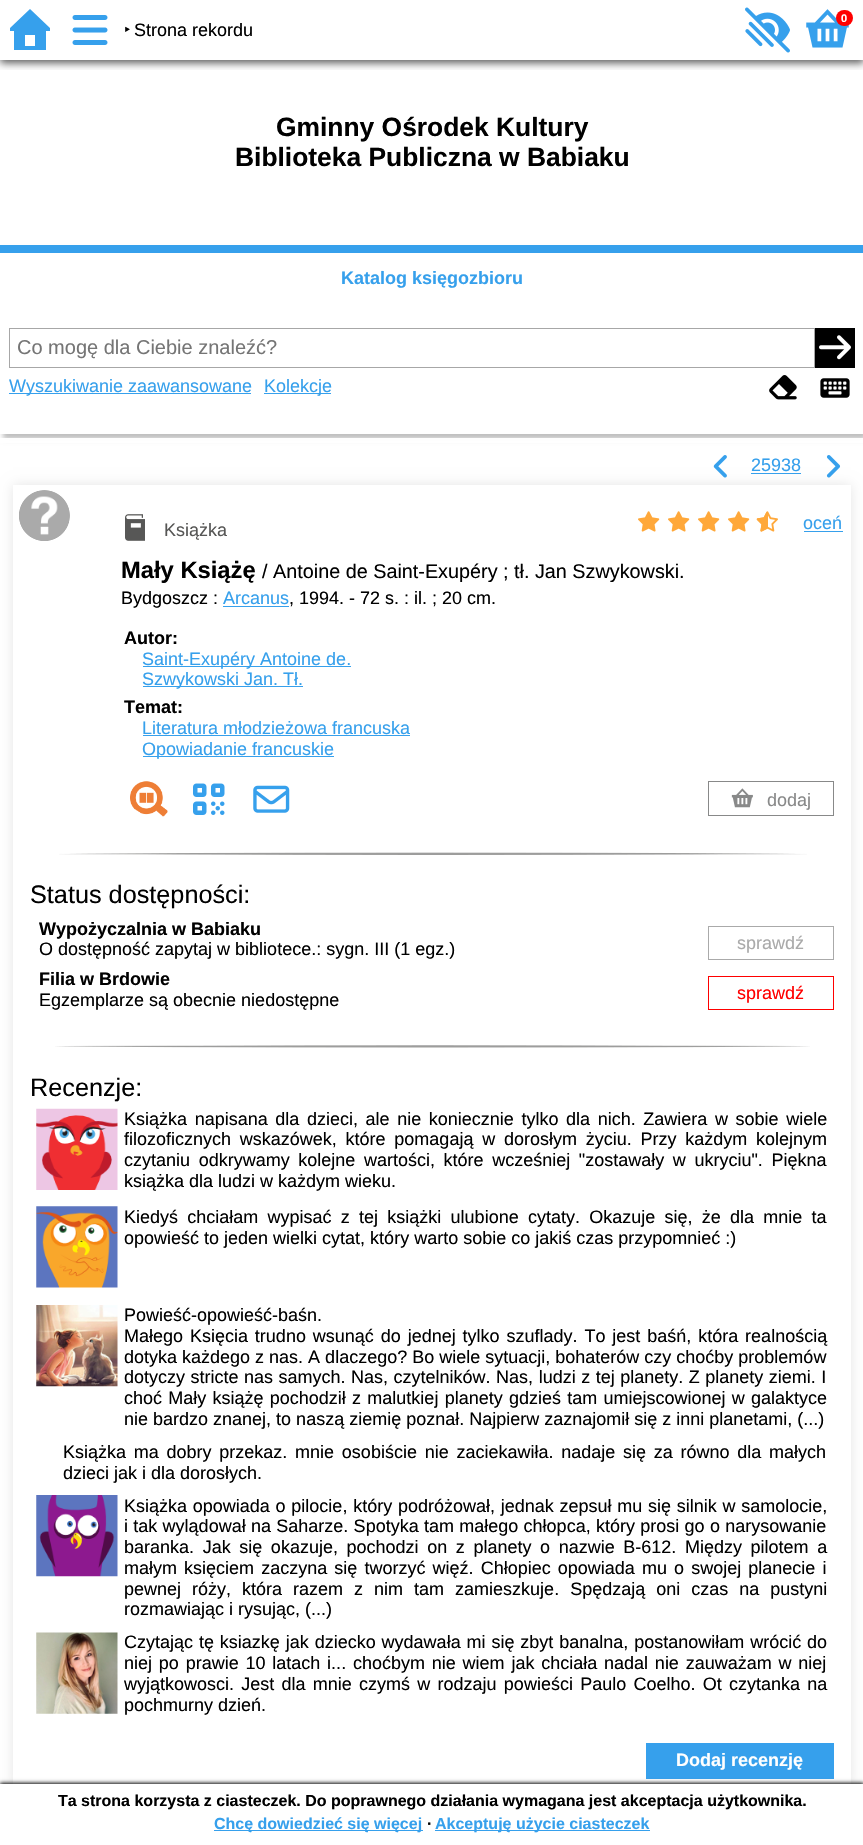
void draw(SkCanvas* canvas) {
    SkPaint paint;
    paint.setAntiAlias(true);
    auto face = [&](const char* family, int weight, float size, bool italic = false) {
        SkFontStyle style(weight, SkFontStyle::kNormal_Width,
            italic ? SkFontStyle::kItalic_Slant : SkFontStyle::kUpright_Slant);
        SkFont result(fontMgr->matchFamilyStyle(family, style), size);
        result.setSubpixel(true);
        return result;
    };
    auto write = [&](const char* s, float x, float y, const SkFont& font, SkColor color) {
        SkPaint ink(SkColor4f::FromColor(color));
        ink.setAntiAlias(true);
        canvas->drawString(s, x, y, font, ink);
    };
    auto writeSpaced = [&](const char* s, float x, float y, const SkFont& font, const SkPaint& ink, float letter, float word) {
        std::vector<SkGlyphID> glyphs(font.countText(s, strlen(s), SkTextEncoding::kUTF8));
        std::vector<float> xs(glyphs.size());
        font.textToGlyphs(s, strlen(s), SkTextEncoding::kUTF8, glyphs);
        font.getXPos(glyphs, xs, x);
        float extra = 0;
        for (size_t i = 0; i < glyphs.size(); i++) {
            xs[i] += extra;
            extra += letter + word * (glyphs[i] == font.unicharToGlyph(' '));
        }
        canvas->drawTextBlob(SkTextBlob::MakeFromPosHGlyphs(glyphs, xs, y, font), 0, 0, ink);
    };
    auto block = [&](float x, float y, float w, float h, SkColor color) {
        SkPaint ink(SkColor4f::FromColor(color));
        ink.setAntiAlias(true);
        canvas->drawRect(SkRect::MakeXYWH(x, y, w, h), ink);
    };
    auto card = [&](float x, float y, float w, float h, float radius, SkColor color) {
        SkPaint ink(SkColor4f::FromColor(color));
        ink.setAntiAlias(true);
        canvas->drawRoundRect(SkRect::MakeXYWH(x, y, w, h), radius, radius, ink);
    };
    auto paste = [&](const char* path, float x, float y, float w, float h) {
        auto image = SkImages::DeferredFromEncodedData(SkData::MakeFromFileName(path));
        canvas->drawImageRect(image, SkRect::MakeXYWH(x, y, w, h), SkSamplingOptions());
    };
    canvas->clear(SK_ColorWHITE);
    canvas->save();
    canvas->clipRect(SkRect::MakeXYWH(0, 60, 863, 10));
    paint.setColor(SkColorSetARGB(166, 0, 0, 0));
    paint.setMaskFilter(SkMaskFilter::MakeBlur(kNormal_SkBlurStyle, 4));
    canvas->drawRect(SkRect::MakeXYWH(0, 3, 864, 60), paint);
    paint.setMaskFilter(nullptr);
    canvas->restore();
    paste("pic1.png", 745, 7, 45, 46);
    paste("pic2.png", 806, 9, 43, 39);
    card(836, 10, 17, 16, 8, SkColorSetRGB(255, 0, 0));
    auto kFont1 = face("Liberation Sans", 700, 11);
    write("0", 841, 22, kFont1, SK_ColorWHITE);
    paint.setColor(SkColorSetRGB(54, 160, 236));
    canvas->drawPath(SkPathBuilder().moveTo(50, 31).lineTo(46, 31).lineTo(46, 50).lineTo(14, 50).lineTo(14, 31).lineTo(10, 31).lineTo(10, 28).lineTo(30, 9).lineTo(50, 28).close().moveTo(35, 46).lineTo(35, 35).lineTo(25, 35).lineTo(25, 46).close().detach(), paint);
    paste("pic3.png", 72, 15, 36, 30);
    auto kFont2 = face("Noto Sans", 400, 18);
    write("‣", 124, 36, kFont2, SK_ColorBLACK);
    auto kFont3 = face("Liberation Sans", 400, 18);
    write("Strona rekordu", 134, 36, kFont3, SK_ColorBLACK);
    auto kFont4 = face("Liberation Sans", 700, 26.4f);
    write("Gminny Ośrodek Kultury", 276, 136, kFont4, SK_ColorBLACK);
    write("Biblioteka Publiczna w Babiaku", 235, 166, kFont4, SK_ColorBLACK);
    canvas->save();
    canvas->clipPath(SkPathBuilder(SkPathFillType::kEvenOdd).moveTo(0, 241).lineTo(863, 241).lineTo(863, 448).lineTo(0, 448).close().moveTo(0, 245).lineTo(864, 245).lineTo(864, 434).lineTo(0, 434).close().detach(), true);
    paint.setColor(SkColorSetARGB(64, 0, 0, 0));
    paint.setMaskFilter(SkMaskFilter::MakeBlur(kNormal_SkBlurStyle, 2.5f));
    canvas->drawRect(SkRect::MakeXYWH(3, 250, 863, 189), paint);
    paint.setMaskFilter(nullptr);
    canvas->restore();
    block(1, 433, 862, 1, SkColorSetARGB(242, 255, 255, 255));
    block(0, 245, 863, 8, SkColorSetRGB(54, 160, 236));
    auto kFont5 = face("Liberation Sans", 700, 18);
    write("Katalog księgozbioru", 341, 284, kFont5, SkColorSetRGB(54, 160, 236));
    paint.setStyle(SkPaint::kStroke_Style);
    paint.setStrokeWidth(1);
    paint.setColor(SkColorSetRGB(167, 167, 167));
    canvas->drawRect(SkRect::MakeXYWH(9.5f, 328.5f, 805, 39), paint);
    auto kFont6 = face("Liberation Sans", 400, 20);
    write("Co mogę dla Ciebie znaleźć?", 17, 354, kFont6, SkColorSetRGB(117, 117, 117));
    block(815, 328, 40, 40, SK_ColorBLACK);
    paste("pic4.png", 819, 335, 32, 25);
    block(9, 393, 242, 1, SkColorSetRGB(54, 160, 236));
    write("Wyszukiwanie zaawansowane", 9, 392, kFont3, SkColorSetRGB(54, 160, 236));
    block(264, 393, 67, 1, SkColorSetRGB(54, 160, 236));
    write("Kolekcje", 264, 392, kFont3, SkColorSetRGB(54, 160, 236));
    paste("pic5.png", 769, 375, 28, 25);
    paste("pic6.png", 820, 378, 30, 20);
    block(0, 438, 863, 5, SkColorSetARGB(242, 255, 255, 255));
    canvas->save();
    canvas->clipPath(SkPathBuilder(SkPathFillType::kEvenOdd).moveTo(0, 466).lineTo(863, 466).lineTo(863, 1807).lineTo(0, 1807).close().moveTo(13, 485).lineTo(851, 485).lineTo(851, 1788).lineTo(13, 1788).close().detach(), true);
    paint.setStyle(SkPaint::kFill_Style);
    paint.setColor(SkColorSetARGB(26, 0, 0, 0));
    paint.setMaskFilter(SkMaskFilter::MakeBlur(kNormal_SkBlurStyle, 6));
    canvas->drawRect(SkRect::MakeXYWH(13, 485, 838, 1303), paint);
    paint.setMaskFilter(nullptr);
    canvas->restore();
    paste("pic7.png", 713, 455, 14, 23);
    write("25938", 751, 471, kFont3, SkColorSetRGB(54, 160, 236));
    block(751, 473, 50, 1, SkColorSetRGB(54, 160, 236));
    paste("pic8.png", 826, 455, 15, 23);
    paste("pic9.png", 19, 490, 51, 51);
    paste("pic10.png", 125, 514, 20, 27);
    write("Książka", 164, 536, kFont3, SkColorSetRGB(87, 87, 86));
    paste("pic11.png", 638, 511, 22, 21);
    paste("pic11.png", 668, 511, 22, 21);
    paste("pic11.png", 698, 511, 22, 21);
    paste("pic11.png", 728, 511, 22, 21);
    paste("pic12.png", 756, 511, 22, 21);
    paste("pic13.png", 756, 512, 12, 20);
    write("oceń", 803, 529, kFont3, SkColorSetRGB(54, 160, 236));
    block(804, 531, 39, 1, SkColorSetRGB(54, 160, 236));
    auto kFont7 = face("Liberation Sans", 700, 23.75f);
    write("Mały Książę", 121, 578, kFont7, SK_ColorBLACK);
    auto kFont8 = face("Liberation Sans", 400, 19.8f);
    write("/ Antoine de Saint-Exupéry ; tł. Jan Szwykowski.", 262, 578, kFont8, SK_ColorBLACK);
    write("Bydgoszcz :", 121, 604, kFont3, SK_ColorBLACK);
    write("Arcanus", 223, 604, kFont3, SkColorSetRGB(54, 160, 236));
    block(223, 606, 66, 1, SkColorSetRGB(54, 160, 236));
    write(", 1994. - 72 s. : il. ; 20 cm.", 289, 604, kFont3, SK_ColorBLACK);
    write("Autor:", 124, 644, kFont5, SK_ColorBLACK);
    block(143, 666, 208, 1, SkColorSetRGB(54, 160, 236));
    write("Saint-Exupéry Antoine de.", 142, 665, kFont3, SkColorSetRGB(54, 160, 236));
    block(143, 686, 160, 1, SkColorSetRGB(54, 160, 236));
    write("Szwykowski Jan. Tł.", 142, 685, kFont3, SkColorSetRGB(54, 160, 236));
    write("Temat:", 124, 713, kFont5, SK_ColorBLACK);
    write("Literatura młodzieżowa francuska", 142, 734, kFont3, SkColorSetRGB(54, 160, 236));
    block(143, 735, 267, 1, SkColorSetRGB(54, 160, 236));
    block(143, 756, 191, 1, SkColorSetRGB(54, 160, 236));
    write("Opowiadanie francuskie", 142, 755, kFont3, SkColorSetRGB(54, 160, 236));
    paste("pic14.png", 130, 781, 38, 36);
    paste("pic15.png", 193, 783, 32, 32);
    paste("pic16.png", 253, 785, 37, 28);
    paint.setStyle(SkPaint::kStroke_Style);
    paint.setColor(SkColorSetRGB(136, 137, 137));
    canvas->drawRect(SkRect::MakeXYWH(708.5f, 781.5f, 125, 34), paint);
    paste("pic17.png", 731, 788, 22, 20);
    write("dodaj", 767, 806, kFont3, SkColorSetRGB(136, 137, 137));
    paste("pic18.png", 59, 852, 748, 3);
    auto kFont9 = face("Liberation Sans", 400, 25.25f);
    write("Status dostępności:", 30, 903, kFont9, SK_ColorBLACK);
    write("Wypożyczalnia w Babiaku", 39, 935, kFont5, SK_ColorBLACK);
    write("O dostępność zapytaj w bibliotece.: sygn. III (1 egz.)", 39, 955, kFont3, SK_ColorBLACK);
    paint.setColor(SkColorSetRGB(170, 170, 170));
    canvas->drawRect(SkRect::MakeXYWH(708.5f, 926.5f, 125, 33), paint);
    write("sprawdź", 737, 949, kFont3, SkColorSetRGB(170, 170, 170));
    write("Filia w Brdowie", 39, 985, kFont5, SK_ColorBLACK);
    write("Egzemplarze są obecnie niedostępne", 39, 1006, kFont3, SK_ColorBLACK);
    paint.setColor(SkColorSetRGB(255, 0, 0));
    canvas->drawRect(SkRect::MakeXYWH(708.5f, 976.5f, 125, 33), paint);
    write("sprawdź", 737, 999, kFont3, SkColorSetRGB(255, 0, 0));
    paste("pic19.png", 55, 1045, 755, 3);
    write("Recenzje:", 30, 1096, kFont9, SK_ColorBLACK);
    paste("pic20.png", 36, 1108, 82, 82);
    paint.setStyle(SkPaint::kFill_Style);
    paint.setColor(SK_ColorBLACK);
    writeSpaced("Książka napisana dla dzieci, ale nie koniecznie tylko dla nich. Zawiera w sobie wiele", 124, 1125, kFont3, paint, 0, 2.6f);
    writeSpaced("filozoficznych wskazówek, które pomagają w dorosłym życiu. Przy każdym kolejnym", 124, 1145, kFont3, paint, 0, 3.75f);
    writeSpaced("czytaniu odkrywamy kolejne wartości, które wcześniej \"zostawały w ukryciu\". Piękna", 124, 1166, kFont3, paint, 0, 3.6f);
    write("książka dla ludzi w każdym wieku.", 124, 1187, kFont3, SK_ColorBLACK);
    paste("pic21.png", 36, 1206, 82, 82);
    writeSpaced("Kiedyś chciałam wypisać z tej książki ulubione cytaty. Okazuje się, że dla mnie ta", 124, 1223, kFont3, paint, 0, 4.25f);
    write("opowieść to jeden wielki cytat, który warto sobie co jakiś czas przypomnieć :)", 124, 1244, kFont3, SK_ColorBLACK);
    paste("pic22.png", 36, 1305, 82, 82);
    write("Powieść-opowieść-baśn.", 124, 1321, kFont3, SK_ColorBLACK);
    writeSpaced("Małego Księcia trudno wsunąć do jednej tylko szuflady. To jest baśń, która realnością", 124, 1342, kFont3, paint, 0, 1.9f);
    write("dotyka każdego z nas. A dlaczego? Bo wiele sytuacji, bohaterów czy choćby problemów", 124, 1363, kFont3, SK_ColorBLACK);
    writeSpaced("dotyczy stricte nas samych. Nas, czytelników. Nas, ludzi z tej planety. Z planety ziemi. I", 124, 1383, kFont3, paint, 0, 0.5f);
    writeSpaced("choć Mały książę pochodził z malutkiej planety gdzieś tam umiejscowionej w galaktyce", 124, 1404, kFont3, paint, 0, 1.25f);
    write("nie bardzo znanej, to naszą ziemię poznał. Najpierw zaznajomił się z inni planetami, (...)", 124, 1425, kFont3, SK_ColorBLACK);
    writeSpaced("Książka ma dobry przekaz. mnie osobiście nie zaciekawiła. nadaje się za równo dla małych", 63, 1458, kFont3, paint, 0, 2.75f);
    write("dzieci jak i dla dorosłych.", 63, 1479, kFont3, SK_ColorBLACK);
    paste("pic23.png", 36, 1495, 82, 82);
    writeSpaced("Książka opowiada o pilocie, który podróżował, jednak zepsuł mu się silnik w samolocie,", 124, 1512, kFont3, paint, 0, 0.75f);
    writeSpaced("i tak wylądował na Saharze. Spotyka tam małego chłopca, który prosi go o narysowanie", 124, 1532, kFont3, paint, 0, 0.3f);
    writeSpaced("baranka. Jak się okazuje, pochodzi on z planety o nazwie B-612. Między pilotem a", 124, 1553, kFont3, paint, 0, 3.6f);
    writeSpaced("małym księciem zaczyna się tworzyć więź. Chłopiec opowiada mu o swojej planecie i", 124, 1574, kFont3, paint, 0, 2.1f);
    writeSpaced("pewnej róży, która razem z nim tam zamieszkuje. Spędzają oni czas na pustyni", 124, 1595, kFont3, paint, 0, 6);
    write("rozmawiając i rysując, (...)", 124, 1615, kFont3, SK_ColorBLACK);
    paste("pic24.png", 36, 1632, 82, 82);
    writeSpaced("Czytając tę ksiazkę jak dziecko wydawała mi się zbyt banalna, postanowiłam wrócić do", 124, 1648, kFont3, paint, 0, 0.9f);
    writeSpaced("niej po prawie 10 latach i... choćbym nie wiem jak chciała nadal nie zauważam w niej", 124, 1669, kFont3, paint, 0, 1.8f);
    writeSpaced("wyjątkowosci. Jest dla mnie czymś w rodzaju powieści Paulo Coelho. Ot czytanka na", 124, 1690, kFont3, paint, 0, 2.25f);
    write("pochmurny dzień.", 124, 1711, kFont3, SK_ColorBLACK);
    block(646, 1743, 188, 36, SkColorSetRGB(54, 160, 236));
    write("Dodaj recenzję", 676, 1766, kFont5, SK_ColorWHITE);
    paint.setMaskFilter(SkMaskFilter::MakeBlur(kNormal_SkBlurStyle, 2));
    canvas->drawRect(SkRect::MakeXYWH(0, 1783, 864, 61), paint);
    paint.setMaskFilter(nullptr);
    block(0, 1784, 863, 61, SK_ColorWHITE);
    auto kFont10 = face("Liberation Sans", 700, 16);
    write("Ta strona korzysta z ciasteczek. Do poprawnego działania wymagana jest akceptacja użytkownika.", 58, 1806, kFont10, SK_ColorBLACK);
    block(214, 1830, 209, 1, SkColorSetRGB(54, 160, 236));
    write("Chcę dowiedzieć się więcej", 214, 1829, kFont10, SkColorSetRGB(54, 160, 236));
    write("∙", 427, 1829, kFont10, SK_ColorBLACK);
    block(435, 1830, 215, 1, SkColorSetRGB(54, 160, 236));
    write("Akceptuję użycie ciasteczek", 435, 1829, kFont10, SkColorSetRGB(54, 160, 236));
}
